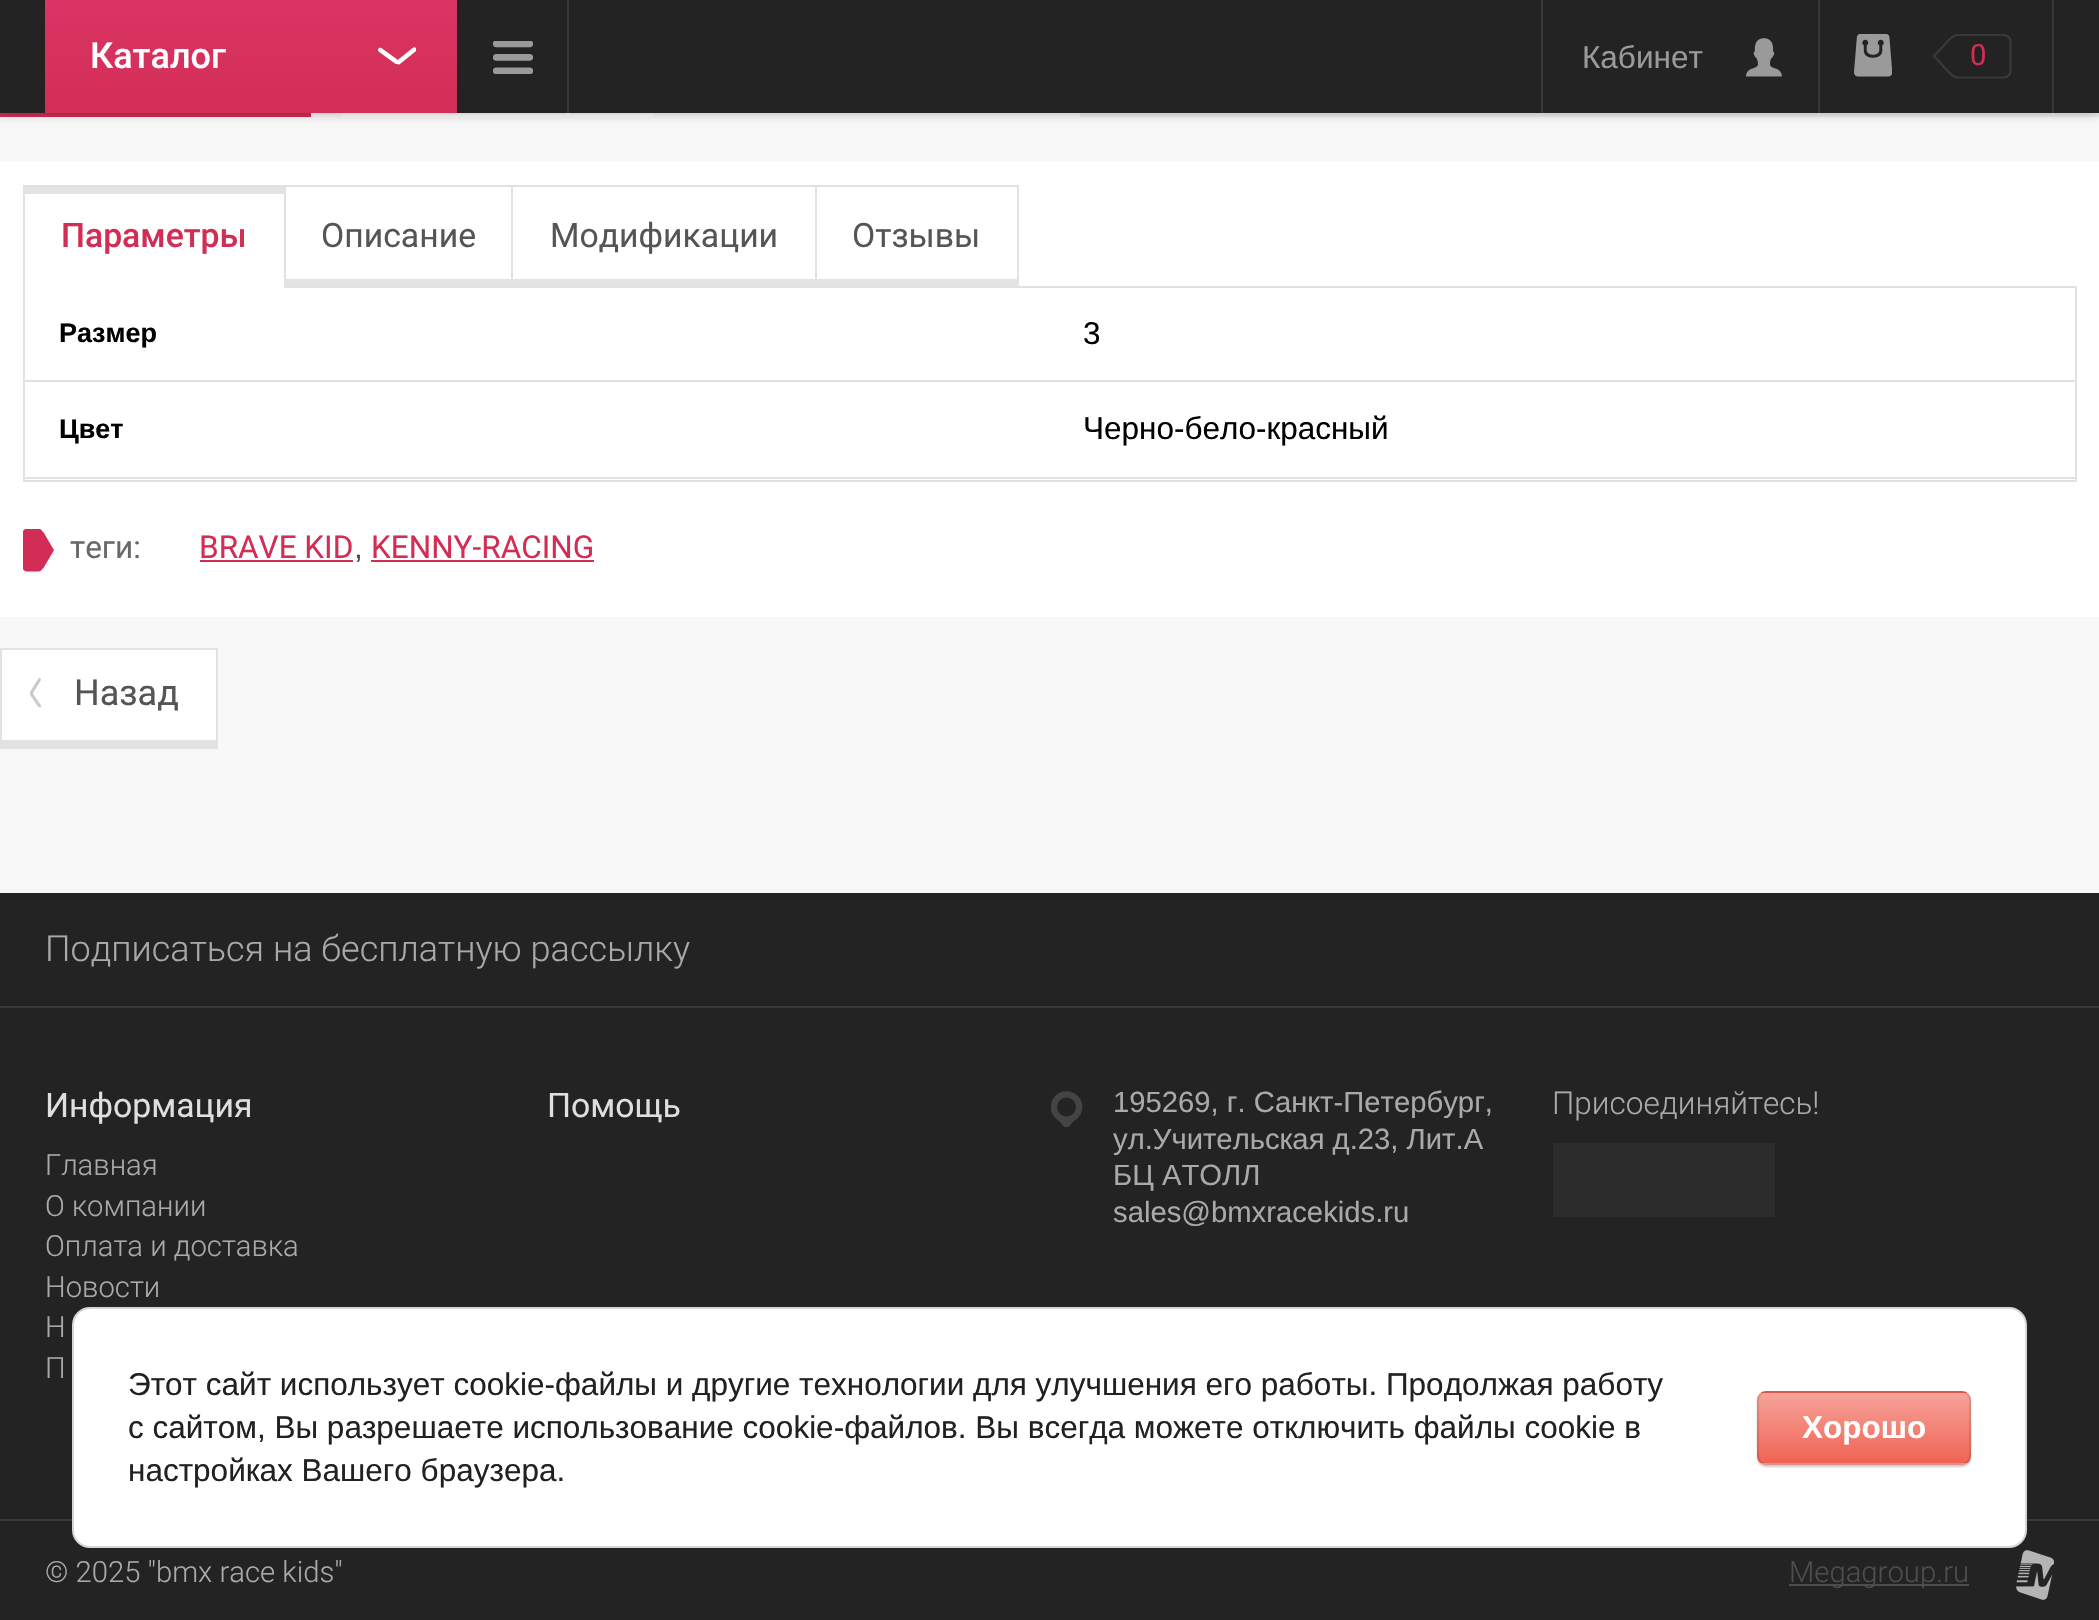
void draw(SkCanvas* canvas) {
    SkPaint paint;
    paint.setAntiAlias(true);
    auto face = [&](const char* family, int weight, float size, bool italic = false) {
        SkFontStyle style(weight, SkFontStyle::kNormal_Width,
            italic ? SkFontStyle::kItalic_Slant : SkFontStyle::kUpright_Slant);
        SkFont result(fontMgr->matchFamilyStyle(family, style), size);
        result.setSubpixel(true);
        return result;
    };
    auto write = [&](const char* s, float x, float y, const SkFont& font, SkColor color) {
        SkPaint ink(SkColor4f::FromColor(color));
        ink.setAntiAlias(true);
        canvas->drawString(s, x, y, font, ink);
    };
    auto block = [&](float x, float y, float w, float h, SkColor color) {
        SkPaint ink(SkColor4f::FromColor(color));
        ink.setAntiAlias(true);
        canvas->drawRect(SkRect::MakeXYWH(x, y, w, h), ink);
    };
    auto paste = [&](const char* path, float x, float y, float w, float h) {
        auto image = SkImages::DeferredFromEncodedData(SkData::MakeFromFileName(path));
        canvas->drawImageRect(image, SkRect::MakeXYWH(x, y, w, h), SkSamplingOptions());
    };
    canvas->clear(SkColorSetRGB(248, 248, 248));
    block(0, 113, 311, 4, SkColorSetRGB(210, 45, 84));
    block(342, 113, 311, 4, SK_ColorWHITE);
    paint.setStyle(SkPaint::kStroke_Style);
    paint.setStrokeWidth(11);
    paint.setColor(SkColorSetRGB(237, 237, 237));
    canvas->drawRect(SkRect::MakeXYWH(1085.5f, -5.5f, 1008, 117), paint);
    paint.setStyle(SkPaint::kFill_Style);
    paint.setColor(SkColorSetARGB(79, 0, 0, 0));
    paint.setMaskFilter(SkMaskFilter::MakeBlur(kNormal_SkBlurStyle, 5.5f));
    canvas->drawRect(SkRect::MakeXYWH(0, 0, 2099, 113), paint);
    paint.setMaskFilter(nullptr);
    block(0, 0, 2099, 113, SkColorSetRGB(35, 35, 35));
    {
        const SkColor colors[] = {SkColorSetRGB(211, 46, 87), SkColorSetRGB(218, 53, 99)};
        const float stops[] = {0, 1};
        const SkPoint ends[] = {{251, 113}, {251, 0}};
        paint.setShader(SkGradientShader::MakeLinear(ends, colors, stops, 2, SkTileMode::kClamp));
        paint.setAlpha(255);
    }
    canvas->drawRect(SkRect::MakeXYWH(45, 0, 412, 113), paint);
    auto kFont1 = face("Roboto", 500, 36);
    write("Каталог", 90, 68, kFont1, SK_ColorWHITE);
    paste("pic1.png", 378, 47, 38, 18);
    paste("pic2.png", 493, 41, 40, 33);
    block(567, 0, 2, 113, SkColorSetRGB(57, 57, 57));
    block(2052, 0, 2, 113, SkColorSetRGB(57, 57, 57));
    block(1541, 0, 2, 113, SkColorSetRGB(57, 57, 57));
    block(1818, 0, 2, 113, SkColorSetRGB(57, 57, 57));
    paste("pic3.png", 1746, 38, 36, 39);
    auto kFont2 = face("Liberation Sans", 400, 31.5f);
    write("Кабинет", 1582, 68, kFont2, SkColorSetRGB(154, 154, 154));
    paste("pic4.png", 1854, 34, 38, 43);
    canvas->save();
    canvas->clipRect(SkRect::MakeXYWH(1933, 34, 79, 45));
    paint.setStyle(SkPaint::kStroke_Style);
    paint.setStrokeWidth(2.2f);
    paint.setStrokeJoin(SkPaint::kRound_Join);
    paint.setShader(nullptr);
    paint.setColor(SkColorSetRGB(57, 57, 57));
    canvas->drawPath(SkPathBuilder().moveTo(2003.5f, 77.5f).lineTo(1956.5f, 77.5f).cubicTo(1954.5f, 77.5f, 1949.5f, 73, 1949.5f, 73).lineTo(1934, 56).lineTo(1949.5f, 39.5f).cubicTo(1949.5f, 39, 1955, 35, 1956.5f, 35).lineTo(2003.5f, 35).cubicTo(2007.5f, 35, 2010.5f, 38, 2010.5f, 41.5f).lineTo(2010.5f, 71).cubicTo(2010.5f, 74.5f, 2007.5f, 77.5f, 2003.5f, 77.5f).close().detach(), paint);
    canvas->restore();
    auto kFont3 = face("Roboto", 400, 29.25f);
    write("0", 1970, 65, kFont3, SkColorSetRGB(210, 45, 84));
    block(0, 162, 2099, 455, SK_ColorWHITE);
    paint.setStrokeWidth(2);
    paint.setStrokeJoin(SkPaint::kMiter_Join);
    paint.setColor(SkColorSetRGB(225, 225, 225));
    canvas->drawRect(SkRect::MakeXYWH(24, 287, 2052, 194), paint);
    block(25, 286, 259, 2, SK_ColorWHITE);
    block(25, 187, 259, 7, SkColorSetRGB(227, 227, 227));
    block(23, 185, 263, 2, SkColorSetRGB(225, 225, 225));
    block(23, 185, 2, 103, SkColorSetRGB(225, 225, 225));
    auto kFont4 = face("Roboto", 500, 33.75f);
    write("Параметры", 61, 247, kFont4, SkColorSetRGB(210, 45, 84));
    block(286, 279, 225, 7, SkColorSetRGB(227, 227, 227));
    block(284, 185, 735, 2, SkColorSetRGB(226, 226, 226));
    block(284, 185, 2, 101, SkColorSetRGB(226, 226, 226));
    auto kFont5 = face("Roboto", 400, 33.75f);
    write("Описание", 321, 247, kFont5, SkColorSetRGB(85, 85, 85));
    block(513, 279, 302, 7, SkColorSetRGB(227, 227, 227));
    block(511, 185, 2, 101, SkColorSetRGB(226, 226, 226));
    write("Модификации", 550, 247, kFont5, SkColorSetRGB(85, 85, 85));
    block(817, 279, 200, 7, SkColorSetRGB(227, 227, 227));
    block(1017, 185, 2, 101, SkColorSetRGB(226, 226, 226));
    block(815, 185, 2, 101, SkColorSetRGB(226, 226, 226));
    write("Отзывы", 852, 247, kFont5, SkColorSetRGB(85, 85, 85));
    block(25, 380, 2050, 2, SkColorSetRGB(225, 225, 225));
    auto kFont6 = face("Liberation Sans", 700, 27);
    write("Размер", 59, 342, kFont6, SK_ColorBLACK);
    write("3", 1083, 344, kFont2, SK_ColorBLACK);
    block(25, 477, 2050, 2, SkColorSetRGB(225, 225, 225));
    write("Цвет", 59, 438, kFont6, SK_ColorBLACK);
    write("Черно-бело-красный", 1083, 439, kFont2, SK_ColorBLACK);
    paste("pic5.png", 23, 529, 31, 43);
    auto kFont7 = face("Roboto", 400, 31.5f);
    write("теги:", 70, 558, kFont7, SkColorSetRGB(105, 105, 105));
    write("BRAVE KID", 199, 558, kFont7, SkColorSetRGB(210, 45, 84));
    block(200, 560, 153, 2, SkColorSetRGB(210, 45, 84));
    write(",", 354, 558, kFont2, SkColorSetRGB(77, 77, 77));
    write("KENNY-RACING", 371, 558, kFont7, SkColorSetRGB(210, 45, 84));
    block(371, 560, 223, 2, SkColorSetRGB(210, 45, 84));
    block(2, 650, 214, 90, SK_ColorWHITE);
    block(2, 740, 214, 7, SkColorSetRGB(227, 227, 227));
    paint.setColor(SkColorSetRGB(226, 226, 226));
    canvas->drawRect(SkRect::MakeXYWH(1, 649, 216, 99), paint);
    paste("pic6.png", 29, 678, 12, 30);
    auto kFont8 = face("Roboto", 400, 36);
    write("Назад", 74, 705, kFont8, SkColorSetRGB(85, 85, 85));
    block(0, 893, 2099, 727, SkColorSetRGB(35, 35, 35));
    block(0, 1006, 2099, 2, SkColorSetRGB(57, 57, 57));
    auto kFont9 = face("Roboto", 300, 36);
    write("Подписаться на бесплатную рассылку", 45, 961, kFont9, SkColorSetRGB(169, 169, 169));
    write("Информация", 45, 1117, kFont5, SkColorSetRGB(223, 223, 223));
    auto kFont10 = face("Roboto", 300, 29.25f);
    write("Главная", 45, 1175, kFont10, SkColorSetRGB(169, 169, 169));
    write("О компании", 45, 1216, kFont10, SkColorSetRGB(169, 169, 169));
    write("Оплата и доставка", 45, 1256, kFont10, SkColorSetRGB(169, 169, 169));
    write("Новости", 45, 1297, kFont10, SkColorSetRGB(169, 169, 169));
    write("Н", 45, 1337, kFont10, SkColorSetRGB(169, 169, 169));
    write("П", 45, 1378, kFont10, SkColorSetRGB(169, 169, 169));
    write("Помощь", 547, 1117, kFont5, SkColorSetRGB(223, 223, 223));
    paste("pic7.png", 1051, 1091, 32, 36);
    auto kFont11 = face("Liberation Sans", 400, 29.25f);
    write("195269, г. Санкт-Петербург,", 1113, 1112, kFont11, SkColorSetRGB(169, 169, 169));
    write("ул.Учительская д.23, Лит.А", 1113, 1149, kFont11, SkColorSetRGB(169, 169, 169));
    write("БЦ АТОЛЛ", 1113, 1185, kFont11, SkColorSetRGB(169, 169, 169));
    write("sales@bmxracekids.ru", 1113, 1222, kFont11, SkColorSetRGB(169, 169, 169));
    auto kFont12 = face("Roboto", 300, 31.5f);
    write("Присоединяйтесь!", 1552, 1114, kFont12, SkColorSetRGB(169, 169, 169));
    block(1553, 1143, 222, 74, SkColorSetRGB(44, 44, 44));
    block(0, 1519, 2099, 2, SkColorSetRGB(57, 57, 57));
    write("© 2025 \"bmx race kids\"", 45, 1582, kFont10, SkColorSetRGB(169, 169, 169));
    paste("pic8.png", 2016, 1550, 38, 50);
    block(1789, 1584, 180, 2, SkColorSetRGB(77, 77, 77));
    write("Megagroup.ru", 1789, 1582, kFont10, SkColorSetRGB(77, 77, 77));
    paint.setStyle(SkPaint::kFill_Style);
    paint.setColor(SK_ColorWHITE);
    canvas->drawRoundRect(SkRect::MakeXYWH(73, 1308, 1953, 239), 17, 17, paint);
    paint.setStyle(SkPaint::kStroke_Style);
    paint.setColor(SkColorSetRGB(214, 214, 214));
    canvas->drawRoundRect(SkRect::MakeXYWH(73, 1308, 1953, 239), 17, 17, paint);
    write("Этот сайт использует cookie-файлы и другие технологии для улучшения его работы. Продолжая работу", 128, 1395, kFont2, SkColorSetRGB(33, 33, 33));
    write("с сайтом, Вы разрешаете использование cookie-файлов. Вы всегда можете отключить файлы cookie в", 128, 1438, kFont2, SkColorSetRGB(33, 33, 33));
    write("настройках Вашего браузера.", 128, 1481, kFont2, SkColorSetRGB(33, 33, 33));
    paint.setStyle(SkPaint::kFill_Style);
    paint.setColor(SkColorSetARGB(51, 0, 0, 0));
    paint.setMaskFilter(SkMaskFilter::MakeBlur(kNormal_SkBlurStyle, 1));
    canvas->drawRoundRect(SkRect::MakeXYWH(1757, 1393, 214, 74), 9, 9, paint);
    paint.setMaskFilter(nullptr);
    canvas->save();
    canvas->clipPath(SkPathBuilder().moveTo(1766, 1391).lineTo(1962, 1391).cubicTo(1967, 1391, 1971, 1395, 1971, 1400).lineTo(1971, 1456).cubicTo(1971, 1461, 1967, 1465, 1962, 1465).lineTo(1766, 1465).cubicTo(1761, 1465, 1757, 1461, 1757, 1456).lineTo(1757, 1400).cubicTo(1757, 1395, 1761, 1391, 1766, 1391).close().detach(), true);
    {
        const SkColor colors[] = {SkColorSetRGB(246, 163, 154), SkColorSetRGB(240, 99, 84)};
        const float stops[] = {0, 1};
        const SkPoint ends[] = {{1864, 1323}, {1864, 1393}};
        paint.setShader(SkGradientShader::MakeLinear(ends, colors, stops, 2, SkTileMode::kClamp));
        paint.setAlpha(255);
    }
    canvas->drawRect(SkRect::MakeXYWH(1757, 1391, 214, 2), paint);
    {
        const SkColor colors[] = {SkColorSetRGB(246, 163, 154), SkColorSetRGB(240, 99, 84)};
        const float stops[] = {0, 1};
        const SkPoint ends[] = {{1864, 1393}, {1864, 1463}};
        paint.setShader(SkGradientShader::MakeLinear(ends, colors, stops, 2, SkTileMode::kClamp));
        paint.setAlpha(255);
    }
    canvas->drawRect(SkRect::MakeXYWH(1757, 1393, 214, 70), paint);
    {
        const SkColor colors[] = {SkColorSetRGB(246, 163, 154), SkColorSetRGB(240, 99, 84)};
        const float stops[] = {0, 1};
        const SkPoint ends[] = {{1864, 1463}, {1864, 1532}};
        paint.setShader(SkGradientShader::MakeLinear(ends, colors, stops, 2, SkTileMode::kClamp));
        paint.setAlpha(255);
    }
    canvas->drawRect(SkRect::MakeXYWH(1757, 1463, 214, 2), paint);
    canvas->restore();
    paint.setStyle(SkPaint::kStroke_Style);
    paint.setShader(nullptr);
    paint.setColor(SkColorSetARGB(26, 0, 0, 0));
    canvas->drawRoundRect(SkRect::MakeXYWH(1758, 1392, 212, 72), 8, 8, paint);
    auto kFont13 = face("Liberation Sans", 700, 31.5f);
    write("Хорошо", 1802, 1438, kFont13, SK_ColorWHITE);
}
